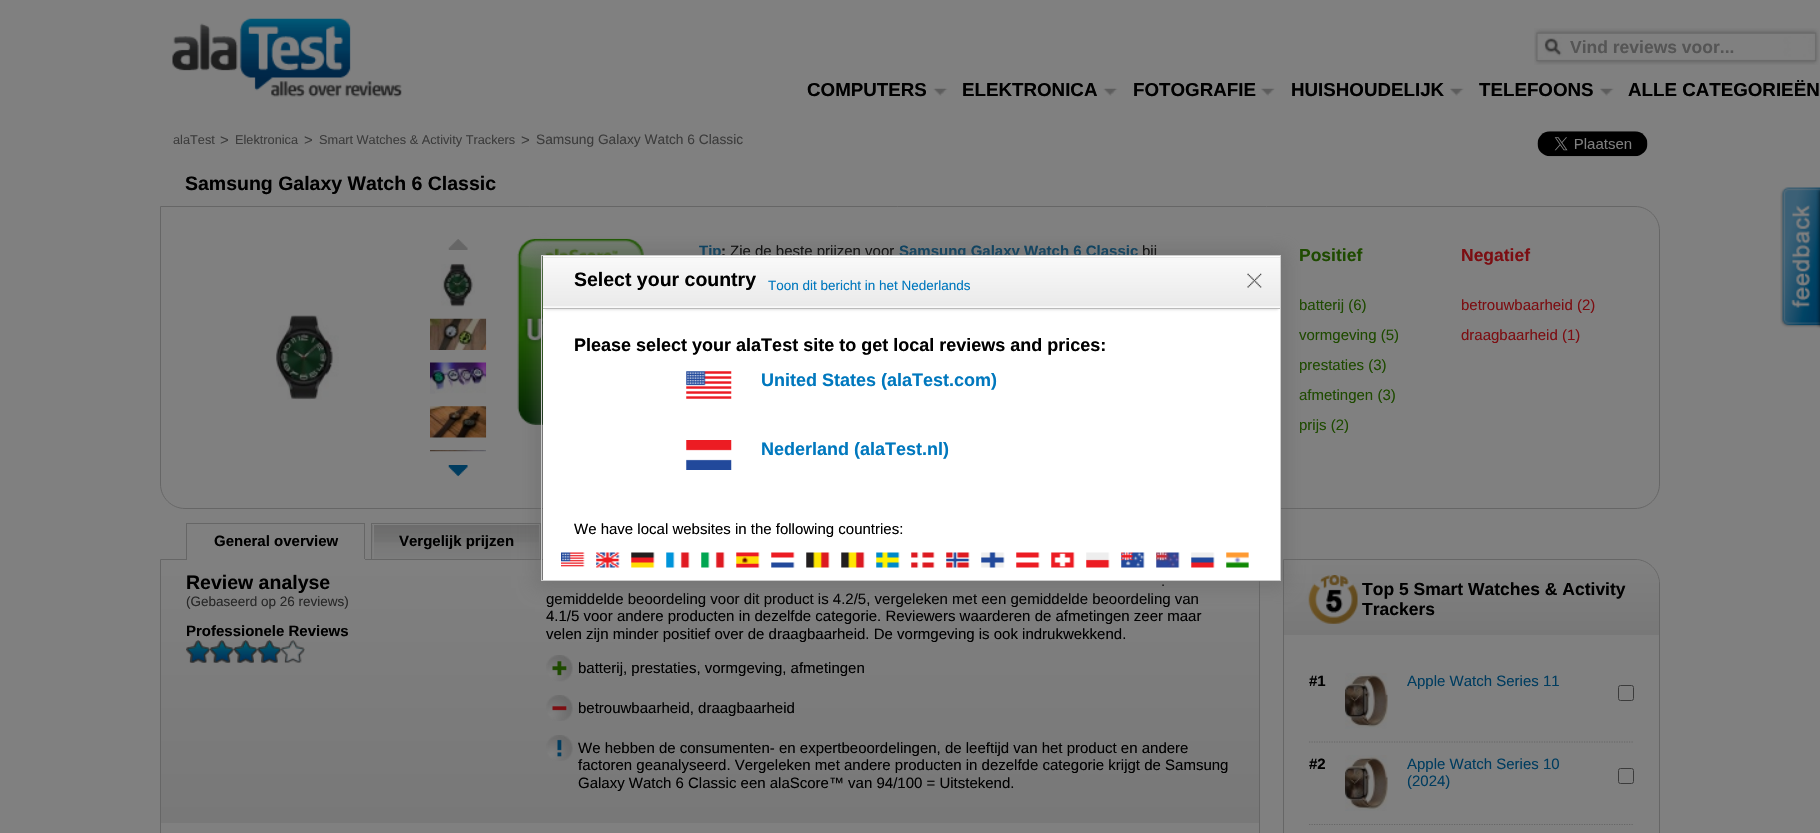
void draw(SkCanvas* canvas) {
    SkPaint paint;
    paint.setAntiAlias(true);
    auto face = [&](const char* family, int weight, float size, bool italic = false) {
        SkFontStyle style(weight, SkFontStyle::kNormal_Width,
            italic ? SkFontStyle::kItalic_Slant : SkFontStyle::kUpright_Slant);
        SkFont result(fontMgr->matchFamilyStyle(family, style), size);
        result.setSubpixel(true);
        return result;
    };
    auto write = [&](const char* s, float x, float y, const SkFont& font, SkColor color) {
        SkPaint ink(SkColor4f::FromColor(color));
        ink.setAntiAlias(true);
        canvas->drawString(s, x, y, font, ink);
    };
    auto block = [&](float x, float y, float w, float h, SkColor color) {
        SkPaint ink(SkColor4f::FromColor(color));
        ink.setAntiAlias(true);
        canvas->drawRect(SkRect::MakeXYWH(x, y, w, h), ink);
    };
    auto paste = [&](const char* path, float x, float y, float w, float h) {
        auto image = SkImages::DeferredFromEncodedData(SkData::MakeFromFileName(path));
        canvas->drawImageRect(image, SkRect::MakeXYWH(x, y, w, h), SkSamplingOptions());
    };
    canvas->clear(SkColorSetRGB(128, 128, 128));
    paste("pic1.png", 1534, 28, 285, 37);
    auto kFont1 = face("Liberation Sans", 700, 17.5f);
    write("Vind reviews voor...", 1570, 53, kFont1, SkColorSetRGB(85, 85, 85));
    auto kFont2 = face("Liberation Sans", 700, 18.75f);
    write("COMPUTERS", 807, 96, kFont2, SK_ColorBLACK);
    paste("pic2.png", 933, 88, 15, 8);
    write("ELEKTRONICA", 962, 96, kFont2, SK_ColorBLACK);
    paste("pic2.png", 1103, 88, 15, 8);
    write("FOTOGRAFIE", 1133, 96, kFont2, SK_ColorBLACK);
    paste("pic3.png", 1261, 88, 14, 8);
    write("HUISHOUDELIJK", 1291, 96, kFont2, SK_ColorBLACK);
    paste("pic4.png", 1450, 88, 14, 8);
    write("TELEFOONS", 1479, 96, kFont2, SK_ColorBLACK);
    paste("pic4.png", 1600, 88, 14, 8);
    write("ALLE CATEGORIEËN", 1628, 96, kFont2, SK_ColorBLACK);
    paste("pic5.png", 172, 18, 230, 79);
    auto kFont3 = face("Liberation Sans", 400, 12.75f);
    write("alaTest", 173, 144, kFont3, SkColorSetRGB(60, 60, 60));
    auto kFont4 = face("Liberation Sans", 400, 15);
    write(">", 220, 145, kFont4, SkColorSetRGB(60, 60, 60));
    write("Elektronica", 235, 144, kFont3, SkColorSetRGB(60, 60, 60));
    write(">", 304, 145, kFont4, SkColorSetRGB(60, 60, 60));
    write("Smart Watches & Activity Trackers", 319, 144, kFont3, SkColorSetRGB(60, 60, 60));
    write(">", 521, 145, kFont4, SkColorSetRGB(60, 60, 60));
    auto kFont5 = face("Liberation Sans", 400, 13.75f);
    write("Samsung Galaxy Watch 6 Classic", 536, 144, kFont5, SkColorSetRGB(60, 60, 60));
    paste("pic6.png", 1537, 131, 111, 26);
    auto kFont6 = face("Liberation Sans", 700, 19.5f);
    write("Samsung Galaxy Watch 6 Classic", 185, 190, kFont6, SK_ColorBLACK);
    paint.setStyle(SkPaint::kStroke_Style);
    paint.setStrokeWidth(1);
    paint.setColor(SkColorSetRGB(102, 102, 102));
    canvas->drawPath(SkPathBuilder().moveTo(160.5f, 206.5f).lineTo(1635, 206.5f).cubicTo(1648.5f, 206.5f, 1659.5f, 217.5f, 1659.5f, 231).lineTo(1659.5f, 484).cubicTo(1659.5f, 497.5f, 1648.5f, 508.5f, 1635, 508.5f).lineTo(185, 508.5f).cubicTo(171.5f, 508.5f, 160.5f, 497.5f, 160.5f, 484).close().detach(), paint);
    paste("pic7.png", 276, 315, 63, 85);
    paste("pic8.png", 448, 239, 20, 11);
    paste("pic9.png", 441, 263, 34, 44);
    paste("pic10.png", 430, 318, 57, 32);
    paste("pic11.png", 430, 362, 57, 32);
    paste("pic12.png", 430, 406, 57, 32);
    paste("pic13.png", 430, 450, 56, 2);
    paste("pic14.png", 448, 465, 20, 12);
    paste("pic15.png", 517, 238, 127, 187);
    auto kFont7 = face("Liberation Sans", 700, 15);
    write("Tip", 699, 256, kFont7, SkColorSetRGB(0, 60, 95));
    write(":", 721, 256, kFont7, SK_ColorBLACK);
    write("Zie de beste prijzen voor", 730, 256, kFont4, SK_ColorBLACK);
    write("Samsung Galaxy Watch 6 Classic", 899, 256, kFont7, SkColorSetRGB(0, 60, 95));
    write("bij", 1142, 256, kFont4, SK_ColorBLACK);
    write("Positief", 1299, 261, kFont1, SkColorSetRGB(30, 74, 0));
    write("batterij (6)", 1299, 310, kFont4, SkColorSetRGB(30, 74, 0));
    write("vormgeving (5)", 1299, 340, kFont4, SkColorSetRGB(30, 74, 0));
    write("prestaties (3)", 1299, 370, kFont4, SkColorSetRGB(30, 74, 0));
    write("afmetingen (3)", 1299, 400, kFont4, SkColorSetRGB(30, 74, 0));
    write("prijs (2)", 1299, 430, kFont4, SkColorSetRGB(30, 74, 0));
    write("Negatief", 1461, 261, kFont1, SkColorSetRGB(124, 14, 18));
    write("betrouwbaarheid (2)", 1461, 310, kFont4, SkColorSetRGB(124, 14, 18));
    write("draagbaarheid (1)", 1461, 340, kFont4, SkColorSetRGB(124, 14, 18));
    canvas->drawPath(SkPathBuilder().moveTo(160.5f, 559.5f).lineTo(1235, 559.5f).cubicTo(1248.5f, 559.5f, 1259.5f, 570.5f, 1259.5f, 584).lineTo(1259.5f, 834).cubicTo(1259.5f, 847.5f, 1248.5f, 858.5f, 1235, 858.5f).lineTo(185, 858.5f).cubicTo(171.5f, 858.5f, 160.5f, 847.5f, 160.5f, 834).close().detach(), paint);
    block(186, 523, 179, 1, SkColorSetRGB(102, 102, 102));
    block(364, 523, 1, 37, SkColorSetRGB(102, 102, 102));
    block(186, 559, 179, 1, SkColorSetRGB(128, 128, 128));
    block(186, 523, 1, 37, SkColorSetRGB(102, 102, 102));
    write("General overview", 214, 546, kFont7, SK_ColorBLACK);
    canvas->drawRect(SkRect::MakeXYWH(371.5f, 523.5f, 169, 36), paint);
    paste("pic16.png", 372, 525, 167, 34);
    block(373, 524, 1, 35, SkColorSetRGB(128, 128, 128));
    write("Vergelijk prijzen", 399, 546, kFont7, SK_ColorBLACK);
    paint.setStyle(SkPaint::kFill_Style);
    {
        const SkColor colors[] = {SkColorSetRGB(128, 128, 128), SkColorSetRGB(120, 120, 120)};
        const float stops[] = {0, 1};
        const SkPoint ends[] = {{710, 560}, {710, 823}};
        paint.setShader(SkGradientShader::MakeLinear(ends, colors, stops, 2, SkTileMode::kClamp));
        paint.setAlpha(255);
    }
    canvas->drawPath(SkPathBuilder().moveTo(161, 560).lineTo(1234, 560).cubicTo(1248, 560, 1259, 571, 1259, 585).lineTo(1259, 823).lineTo(161, 823).close().detach(), paint);
    write("Review analyse", 186, 589, kFont6, SK_ColorBLACK);
    write(".", 1161, 586, kFont4, SK_ColorBLACK);
    write("gemiddelde beoordeling voor dit product is 4.2/5, vergeleken met een gemiddelde beoordeling van", 546, 604, kFont4, SK_ColorBLACK);
    write("4.1/5 voor andere producten in dezelfde categorie. Reviewers waarderen de afmetingen zeer maar", 546, 621, kFont4, SK_ColorBLACK);
    write("velen zijn minder positief over de draagbaarheid. De vormgeving is ook indrukwekkend.", 546, 639, kFont4, SK_ColorBLACK);
    paste("pic17.png", 546, 655, 27, 27);
    write("batterij, prestaties, vormgeving, afmetingen", 578, 673, kFont4, SK_ColorBLACK);
    paste("pic18.png", 546, 695, 27, 26);
    write("betrouwbaarheid, draagbaarheid", 578, 713, kFont4, SK_ColorBLACK);
    paste("pic19.png", 546, 735, 27, 26);
    write("We hebben de consumenten- en expertbeoordelingen, de leeftijd van het product en andere", 578, 753, kFont4, SK_ColorBLACK);
    write("factoren geanalyseerd. Vergeleken met andere producten in dezelfde categorie krijgt de Samsung", 578, 770, kFont4, SK_ColorBLACK);
    write("Galaxy Watch 6 Classic een alaScore™ van 94/100 = Uitstekend.", 578, 788, kFont4, SK_ColorBLACK);
    auto kFont8 = face("Liberation Sans", 400, 13.5f);
    write("(Gebaseerd op 26 reviews)", 186, 606, kFont8, SkColorSetRGB(40, 40, 40));
    write("Professionele Reviews", 186, 636, kFont7, SK_ColorBLACK);
    paste("pic20.png", 186, 640, 119, 23);
    paste("pic21.png", 186, 640, 96, 23);
    paint.setStyle(SkPaint::kStroke_Style);
    paint.setShader(nullptr);
    paint.setColor(SkColorSetRGB(102, 102, 102));
    canvas->drawPath(SkPathBuilder().moveTo(1283.5f, 559.5f).lineTo(1635, 559.5f).cubicTo(1648.5f, 559.5f, 1659.5f, 570.5f, 1659.5f, 584).lineTo(1659.5f, 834).cubicTo(1659.5f, 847.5f, 1648.5f, 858.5f, 1635, 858.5f).lineTo(1308, 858.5f).cubicTo(1294.5f, 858.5f, 1283.5f, 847.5f, 1283.5f, 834).close().detach(), paint);
    paint.setStyle(SkPaint::kFill_Style);
    {
        const SkColor colors[] = {SkColorSetRGB(128, 128, 128), SkColorSetRGB(120, 120, 120)};
        const float stops[] = {0, 1};
        const SkPoint ends[] = {{1471, 560}, {1471, 635}};
        paint.setShader(SkGradientShader::MakeLinear(ends, colors, stops, 2, SkTileMode::kClamp));
        paint.setAlpha(255);
    }
    canvas->drawPath(SkPathBuilder().moveTo(1284, 560).lineTo(1634, 560).cubicTo(1648, 560, 1659, 571, 1659, 585).lineTo(1659, 635).lineTo(1284, 635).close().detach(), paint);
    paste("pic22.png", 1308, 575, 50, 49);
    write("Top 5 Smart Watches & Activity", 1362, 595, kFont1, SK_ColorBLACK);
    write("Trackers", 1362, 615, kFont1, SK_ColorBLACK);
    paint.setStyle(SkPaint::kStroke_Style);
    paint.setStrokeWidth(1.2f);
    paint.setShader(nullptr);
    paint.setColor(SkColorSetRGB(102, 102, 102));
    paint.setPathEffect(SkDashPathEffect::Make({{1.25f, 1.25f}}, 0));
    canvas->drawPath(SkPathBuilder().moveTo(1309, 742).lineTo(1634, 742).detach(), paint);
    paint.setPathEffect(nullptr);
    write("#1", 1309, 686, kFont7, SK_ColorBLACK);
    paste("pic23.png", 1345, 673, 43, 56);
    write("Apple Watch Series 11", 1407, 686, kFont4, SkColorSetRGB(0, 60, 95));
    paint.setStrokeWidth(1);
    paint.setColor(SkColorSetRGB(59, 59, 59));
    canvas->drawRoundRect(SkRect::MakeXYWH(1618.5f, 685.5f, 15, 15), 2, 2, paint);
    paint.setStrokeWidth(1.2f);
    paint.setColor(SkColorSetRGB(102, 102, 102));
    paint.setPathEffect(SkDashPathEffect::Make({{1.25f, 1.25f}}, 0));
    canvas->drawPath(SkPathBuilder().moveTo(1309, 824.5f).lineTo(1634, 824.5f).detach(), paint);
    paint.setPathEffect(nullptr);
    write("#2", 1309, 769, kFont7, SK_ColorBLACK);
    paste("pic24.png", 1345, 755, 43, 56);
    write("Apple Watch Series 10", 1407, 769, kFont4, SkColorSetRGB(0, 60, 95));
    write("(2024)", 1407, 786, kFont4, SkColorSetRGB(0, 60, 95));
    paint.setStrokeWidth(1);
    paint.setColor(SkColorSetRGB(59, 59, 59));
    canvas->drawRoundRect(SkRect::MakeXYWH(1618.5f, 768.5f, 15, 15), 2, 2, paint);
    paint.setStyle(SkPaint::kFill_Style);
    paint.setColor(SkColorSetARGB(102, 100, 100, 100));
    paint.setMaskFilter(SkMaskFilter::MakeBlur(kNormal_SkBlurStyle, 8));
    canvas->drawRect(SkRect::MakeXYWH(535, 249, 753, 339), paint);
    paint.setMaskFilter(nullptr);
    paint.setStyle(SkPaint::kStroke_Style);
    paint.setColor(SkColorSetRGB(204, 204, 204));
    canvas->drawRect(SkRect::MakeXYWH(541.5f, 255.5f, 739, 325), paint);
    block(543, 309, 737, 271, SK_ColorWHITE);
    paint.setStyle(SkPaint::kFill_Style);
    paint.setColor(SkColorSetRGB(226, 226, 226));
    paint.setMaskFilter(SkMaskFilter::MakeBlur(kNormal_SkBlurStyle, 1));
    canvas->drawRect(SkRect::MakeXYWH(545, 264, 733, 46), paint);
    paint.setMaskFilter(nullptr);
    block(543, 308, 737, 1, SkColorSetRGB(186, 186, 186));
    block(543, 257, 737, 1, SkColorSetRGB(234, 234, 234));
    {
        const SkColor colors[] = {SkColorSetRGB(249, 249, 249), SkColorSetRGB(234, 234, 234)};
        const float stops[] = {0, 1};
        const SkPoint ends[] = {{911, 257}, {911, 306}};
        paint.setShader(SkGradientShader::MakeLinear(ends, colors, stops, 2, SkTileMode::kClamp));
        paint.setAlpha(255);
    }
    canvas->drawRect(SkRect::MakeXYWH(543, 258, 737, 48), paint);
    {
        const SkColor colors[] = {SkColorSetRGB(249, 249, 249), SkColorSetRGB(234, 234, 234)};
        const float stops[] = {0, 1};
        const SkPoint ends[] = {{911, 306}, {911, 355}};
        paint.setShader(SkGradientShader::MakeLinear(ends, colors, stops, 2, SkTileMode::kClamp));
        paint.setAlpha(255);
    }
    canvas->drawRect(SkRect::MakeXYWH(543, 307, 737, 1), paint);
    block(543, 256, 737, 1, SK_ColorWHITE);
    block(543, 306, 737, 1, SkColorSetRGB(245, 245, 245));
    write("Select your country", 574, 286, kFont6, SK_ColorBLACK);
    write("Toon dit bericht in het Nederlands", 768, 290, kFont8, SkColorSetRGB(0, 120, 190));
    paste("pic25.png", 1247, 273, 15, 15);
    auto kFont9 = face("Liberation Sans", 700, 18);
    write("Please select your alaTest site to get local reviews and prices:", 574, 351, kFont9, SK_ColorBLACK);
    paste("pic26.png", 686, 371, 46, 28);
    write("United States (alaTest.com)", 761, 386, kFont9, SkColorSetRGB(0, 120, 190));
    paste("pic27.png", 686, 440, 46, 30);
    write("Nederland (alaTest.nl)", 761, 455, kFont9, SkColorSetRGB(0, 120, 190));
    write("We have local websites in the following countries:", 574, 534, kFont4, SK_ColorBLACK);
    paste("pic28.png", 561, 552, 24, 15);
    paste("pic29.png", 596, 552, 24, 16);
    paste("pic30.png", 631, 552, 24, 16);
    paste("pic31.png", 666, 552, 24, 16);
    paste("pic32.png", 701, 552, 24, 16);
    paste("pic33.png", 736, 552, 24, 16);
    paste("pic34.png", 771, 552, 24, 16);
    paste("pic35.png", 806, 552, 24, 16);
    paste("pic35.png", 841, 552, 24, 16);
    paste("pic36.png", 876, 552, 24, 16);
    paste("pic37.png", 911, 552, 24, 16);
    paste("pic38.png", 946, 552, 24, 16);
    paste("pic39.png", 981, 552, 24, 16);
    paste("pic40.png", 1016, 552, 24, 16);
    paste("pic41.png", 1051, 552, 24, 16);
    paste("pic42.png", 1086, 552, 24, 16);
    paste("pic43.png", 1121, 552, 24, 16);
    paste("pic44.png", 1156, 552, 24, 16);
    paste("pic45.png", 1191, 552, 24, 16);
    paste("pic46.png", 1226, 552, 23, 16);
    paste("pic47.png", 1780, 187, 40, 142);
}
